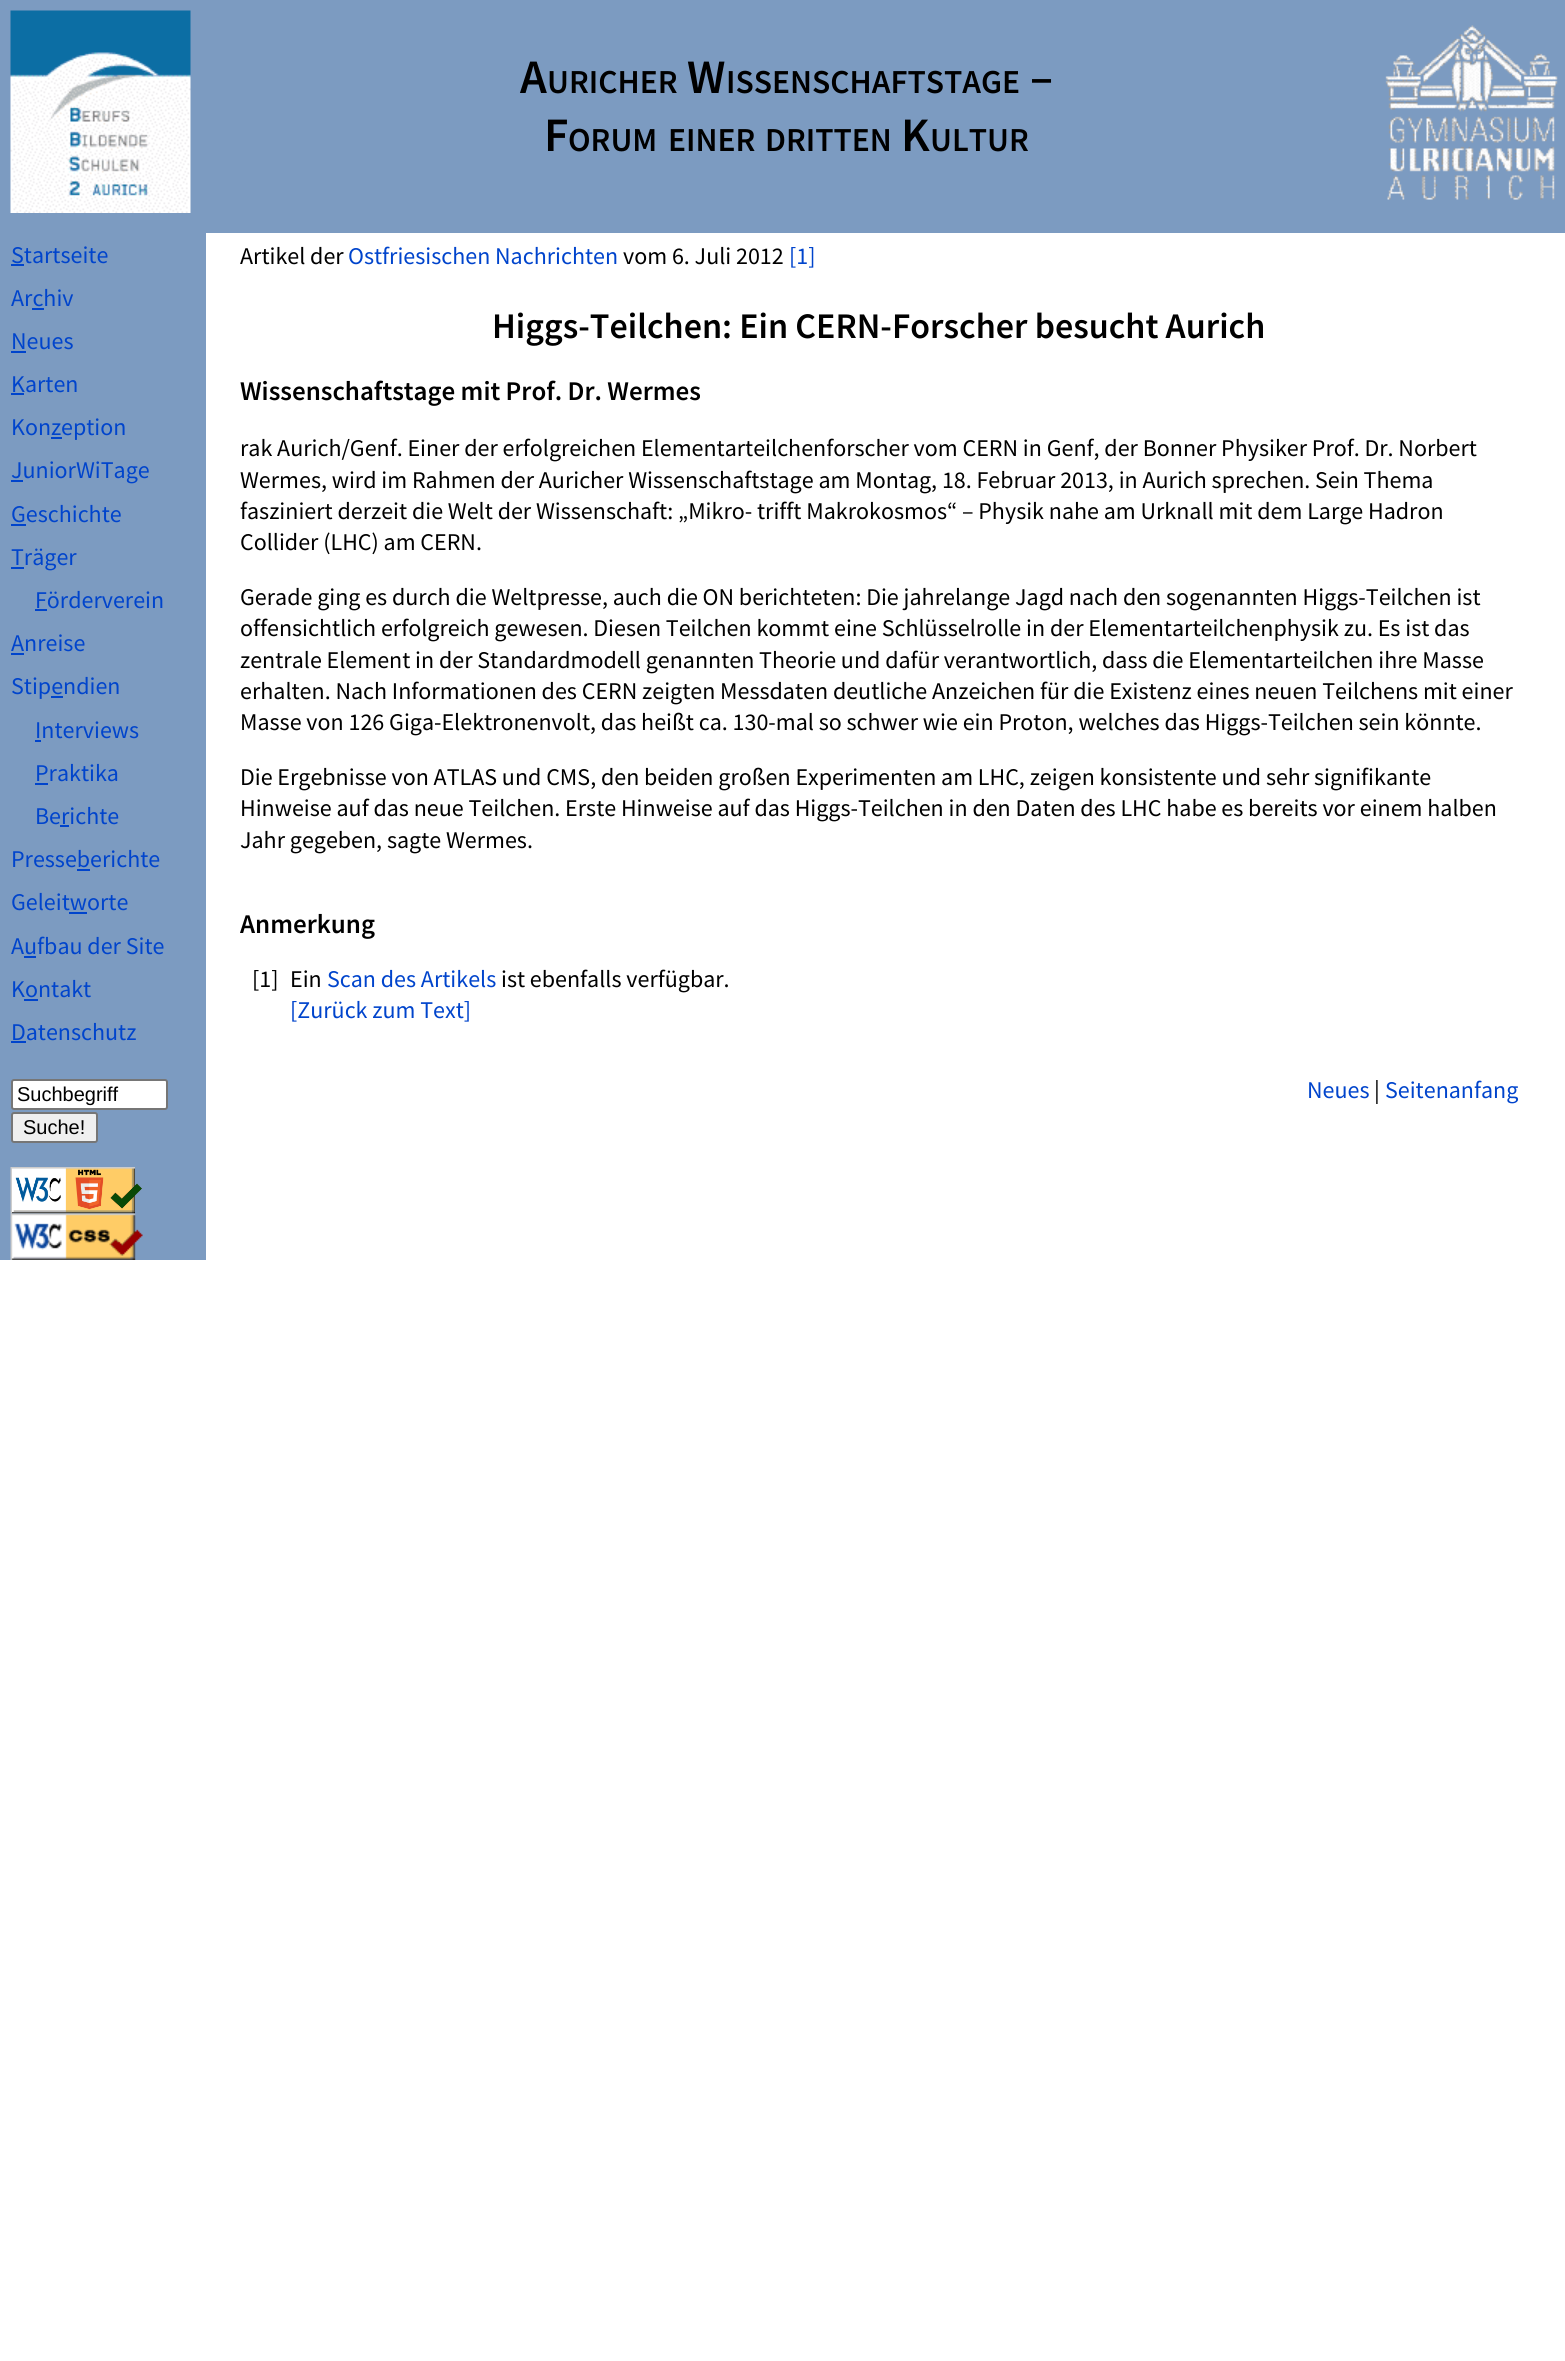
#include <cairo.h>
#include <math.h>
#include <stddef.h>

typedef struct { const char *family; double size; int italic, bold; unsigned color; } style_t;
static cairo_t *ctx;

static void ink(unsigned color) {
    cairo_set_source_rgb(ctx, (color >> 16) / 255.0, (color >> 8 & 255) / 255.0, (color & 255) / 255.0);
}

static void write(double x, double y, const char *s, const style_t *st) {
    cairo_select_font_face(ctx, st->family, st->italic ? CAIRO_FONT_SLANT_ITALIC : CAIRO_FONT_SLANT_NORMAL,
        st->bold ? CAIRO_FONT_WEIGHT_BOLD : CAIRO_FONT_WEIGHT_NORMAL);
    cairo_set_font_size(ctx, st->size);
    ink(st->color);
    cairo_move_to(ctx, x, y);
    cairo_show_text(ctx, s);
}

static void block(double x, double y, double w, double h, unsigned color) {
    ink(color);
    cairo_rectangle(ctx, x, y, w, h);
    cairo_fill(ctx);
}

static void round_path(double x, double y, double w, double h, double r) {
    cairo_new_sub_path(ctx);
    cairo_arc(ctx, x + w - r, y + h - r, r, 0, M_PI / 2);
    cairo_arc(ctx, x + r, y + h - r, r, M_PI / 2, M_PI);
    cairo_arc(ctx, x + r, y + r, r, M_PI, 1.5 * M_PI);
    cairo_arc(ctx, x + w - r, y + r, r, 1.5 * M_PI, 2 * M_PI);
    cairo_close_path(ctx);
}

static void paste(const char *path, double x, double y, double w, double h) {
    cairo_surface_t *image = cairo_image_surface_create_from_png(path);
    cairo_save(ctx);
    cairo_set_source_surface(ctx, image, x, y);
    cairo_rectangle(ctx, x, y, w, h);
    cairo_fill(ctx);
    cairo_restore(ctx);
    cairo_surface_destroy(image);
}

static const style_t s1 = {"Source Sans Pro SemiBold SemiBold", 48, 0, 0, 0x000000};
static const style_t s2 = {"Source Sans Pro SemiBold SemiBold", 33.5, 0, 0, 0x000000};
static const style_t s3 = {"Source Sans Pro", 24, 0, 0, 0x0044cc};
static const style_t s4 = {"Liberation Sans", 20, 0, 0, 0x000000};
static const style_t s5 = {"Source Sans Pro", 24, 0, 0, 0x000000};
static const style_t s6 = {"Source Sans Pro SemiBold SemiBold", 36, 0, 0, 0x000000};
static const style_t s7 = {"Source Sans Pro SemiBold SemiBold", 27, 0, 0, 0x000000};

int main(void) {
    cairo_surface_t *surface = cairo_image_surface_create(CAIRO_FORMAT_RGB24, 1565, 2361);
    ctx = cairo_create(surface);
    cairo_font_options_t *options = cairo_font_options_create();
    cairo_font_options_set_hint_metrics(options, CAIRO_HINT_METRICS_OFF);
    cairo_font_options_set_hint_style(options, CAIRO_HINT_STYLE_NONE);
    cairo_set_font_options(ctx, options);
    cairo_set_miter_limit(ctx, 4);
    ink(0xffffff);
    cairo_paint(ctx);
    block(0, 0, 1565, 233, 0x7c9bc1);
    paste("pic1.png", 10, 10, 181, 203);
    write(520, 93, "A", &s1);
    write(547, 93, "URICHER", &s2);
    write(687, 93, "W", &s1);
    write(726, 93, "ISSENSCHAFTSTAGE", &s2);
    write(1030, 93, "–", &s1);
    write(544, 151, "F", &s1);
    write(568, 151, "ORUM", &s2);
    write(668, 151, "EINER", &s2);
    write(765, 151, "DRITTEN", &s2);
    write(901, 151, "K", &s1);
    write(930, 151, "ULTUR", &s2);
    paste("pic2.png", 1385, 25, 173, 175);
    block(0, 233, 206, 1027, 0x7c9bc1);
    write(11, 263, "Startseite", &s3);
    block(11, 264, 13, 2, 0x0044cc);
    write(11, 306, "Archiv", &s3);
    block(32, 308, 12, 2, 0x0044cc);
    write(11, 349, "Neues", &s3);
    block(11, 351, 15, 2, 0x0044cc);
    write(11, 392, "Karten", &s3);
    block(11, 393, 13, 2, 0x0044cc);
    write(11, 435, "Konz", &s3);
    block(51, 437, 11, 2, 0x0044cc);
    write(61, 435, "eption", &s3);
    block(11, 480, 12, 2, 0x0044cc);
    write(11, 478, "JuniorWiTage", &s3);
    write(11, 522, "Geschichte", &s3);
    block(11, 524, 15, 2, 0x0044cc);
    block(11, 567, 13, 2, 0x0044cc);
    write(11, 565, "Träger", &s3);
    write(35, 608, "Förderverein", &s3);
    block(35, 609, 12, 2, 0x0044cc);
    write(11, 651, "Anreise", &s3);
    block(11, 653, 13, 2, 0x0044cc);
    write(11, 694, "Stipendien", &s3);
    block(51, 696, 12, 2, 0x0044cc);
    write(35, 738, "Interviews", &s3);
    block(35, 740, 6, 2, 0x0044cc);
    write(35, 781, "Praktika", &s3);
    block(35, 783, 13, 2, 0x0044cc);
    write(35, 824, "Berichte", &s3);
    block(60, 825, 9, 2, 0x0044cc);
    write(11, 867, "Presseberichte", &s3);
    block(77, 869, 13, 2, 0x0044cc);
    write(11, 910, "Geleitworte", &s3);
    block(69, 912, 18, 2, 0x0044cc);
    write(11, 954, "Aufbau der Site", &s3);
    block(24, 956, 12, 2, 0x0044cc);
    write(11, 997, "Kontakt", &s3);
    block(24, 999, 14, 2, 0x0044cc);
    write(11, 1040, "Datenschutz", &s3);
    block(11, 1041, 15, 2, 0x0044cc);
    ink(0xffffff);
    round_path(12, 1080, 155, 29, 2);
    cairo_fill_preserve(ctx);
    ink(0x767676);
    cairo_stroke(ctx);
    write(17, 1101, "Suchbegriff", &s4);
    ink(0xefefef);
    round_path(12, 1113, 85, 29, 2);
    cairo_fill_preserve(ctx);
    ink(0x767676);
    cairo_stroke(ctx);
    write(23, 1134, "Suche!", &s4);
    paste("pic3.png", 10, 1167, 132, 47);
    paste("pic4.png", 10, 1213, 133, 47);
    write(240, 264, "Artikel der", &s5);
    write(348, 264, "Ostfriesischen Nachrichten", &s3);
    write(623, 264, "vom 6. Juli 2012", &s5);
    write(789, 264, "[1]", &s3);
    write(492, 338, "Higgs-Teilchen: Ein CERN-Forscher besucht Aurich", &s6);
    write(240, 400, "Wissenschaftstage mit Prof. Dr. Wermes", &s7);
    write(240, 456, "rak Aurich/Genf. Einer der erfolgreichen Elementarteilchenforscher vom CERN in Genf, der Bonner Physiker Prof. Dr. Norbert", &s5);
    write(240, 488, "Wermes, wird im Rahmen der Auricher Wissenschaftstage am Montag, 18. Februar 2013, in Aurich sprechen. Sein Thema", &s5);
    write(240, 519, "fasziniert derzeit die Welt der Wissenschaft: „Mikro- trifft Makrokosmos“ – Physik nahe am Urknall mit dem Large Hadron", &s5);
    write(240, 550, "Collider (LHC) am CERN.", &s5);
    write(240, 605, "Gerade ging es durch die Weltpresse, auch die ON berichteten: Die jahrelange Jagd nach den sogenannten Higgs-Teilchen ist", &s5);
    write(240, 636, "offensichtlich erfolgreich gewesen. Diesen Teilchen kommt eine Schlüsselrolle in der Elementarteilchenphysik zu. Es ist das", &s5);
    write(240, 668, "zentrale Element in der Standardmodell genannten Theorie und dafür verantwortlich, dass die Elementarteilchen ihre Masse", &s5);
    write(240, 699, "erhalten. Nach Informationen des CERN zeigten Messdaten deutliche Anzeichen für die Existenz eines neuen Teilchens mit einer", &s5);
    write(240, 730, "Masse von 126 Giga-Elektronenvolt, das heißt ca. 130-mal so schwer wie ein Proton, welches das Higgs-Teilchen sein könnte.", &s5);
    write(240, 785, "Die Ergebnisse von ATLAS und CMS, den beiden großen Experimenten am LHC, zeigen konsistente und sehr signifikante", &s5);
    write(240, 816, "Hinweise auf das neue Teilchen. Erste Hinweise auf das Higgs-Teilchen in den Daten des LHC habe es bereits vor einem halben", &s5);
    write(240, 848, "Jahr gegeben, sagte Wermes.", &s5);
    write(240, 933, "Anmerkung", &s7);
    write(252, 987, "[1]", &s5);
    write(290, 987, "Ein", &s5);
    write(327, 987, "Scan des Artikels", &s3);
    write(501, 987, "ist ebenfalls verfügbar.", &s5);
    write(290, 1018, "[Zurück zum Text]", &s3);
    write(1307, 1098, "Neues", &s3);
    write(1374, 1098, "|", &s5);
    write(1385, 1098, "Seitenanfang", &s3);
    cairo_surface_write_to_png(surface, "screenshot.png");
    cairo_font_options_destroy(options);
    cairo_destroy(ctx);
    cairo_surface_destroy(surface);
    return 0;
}
